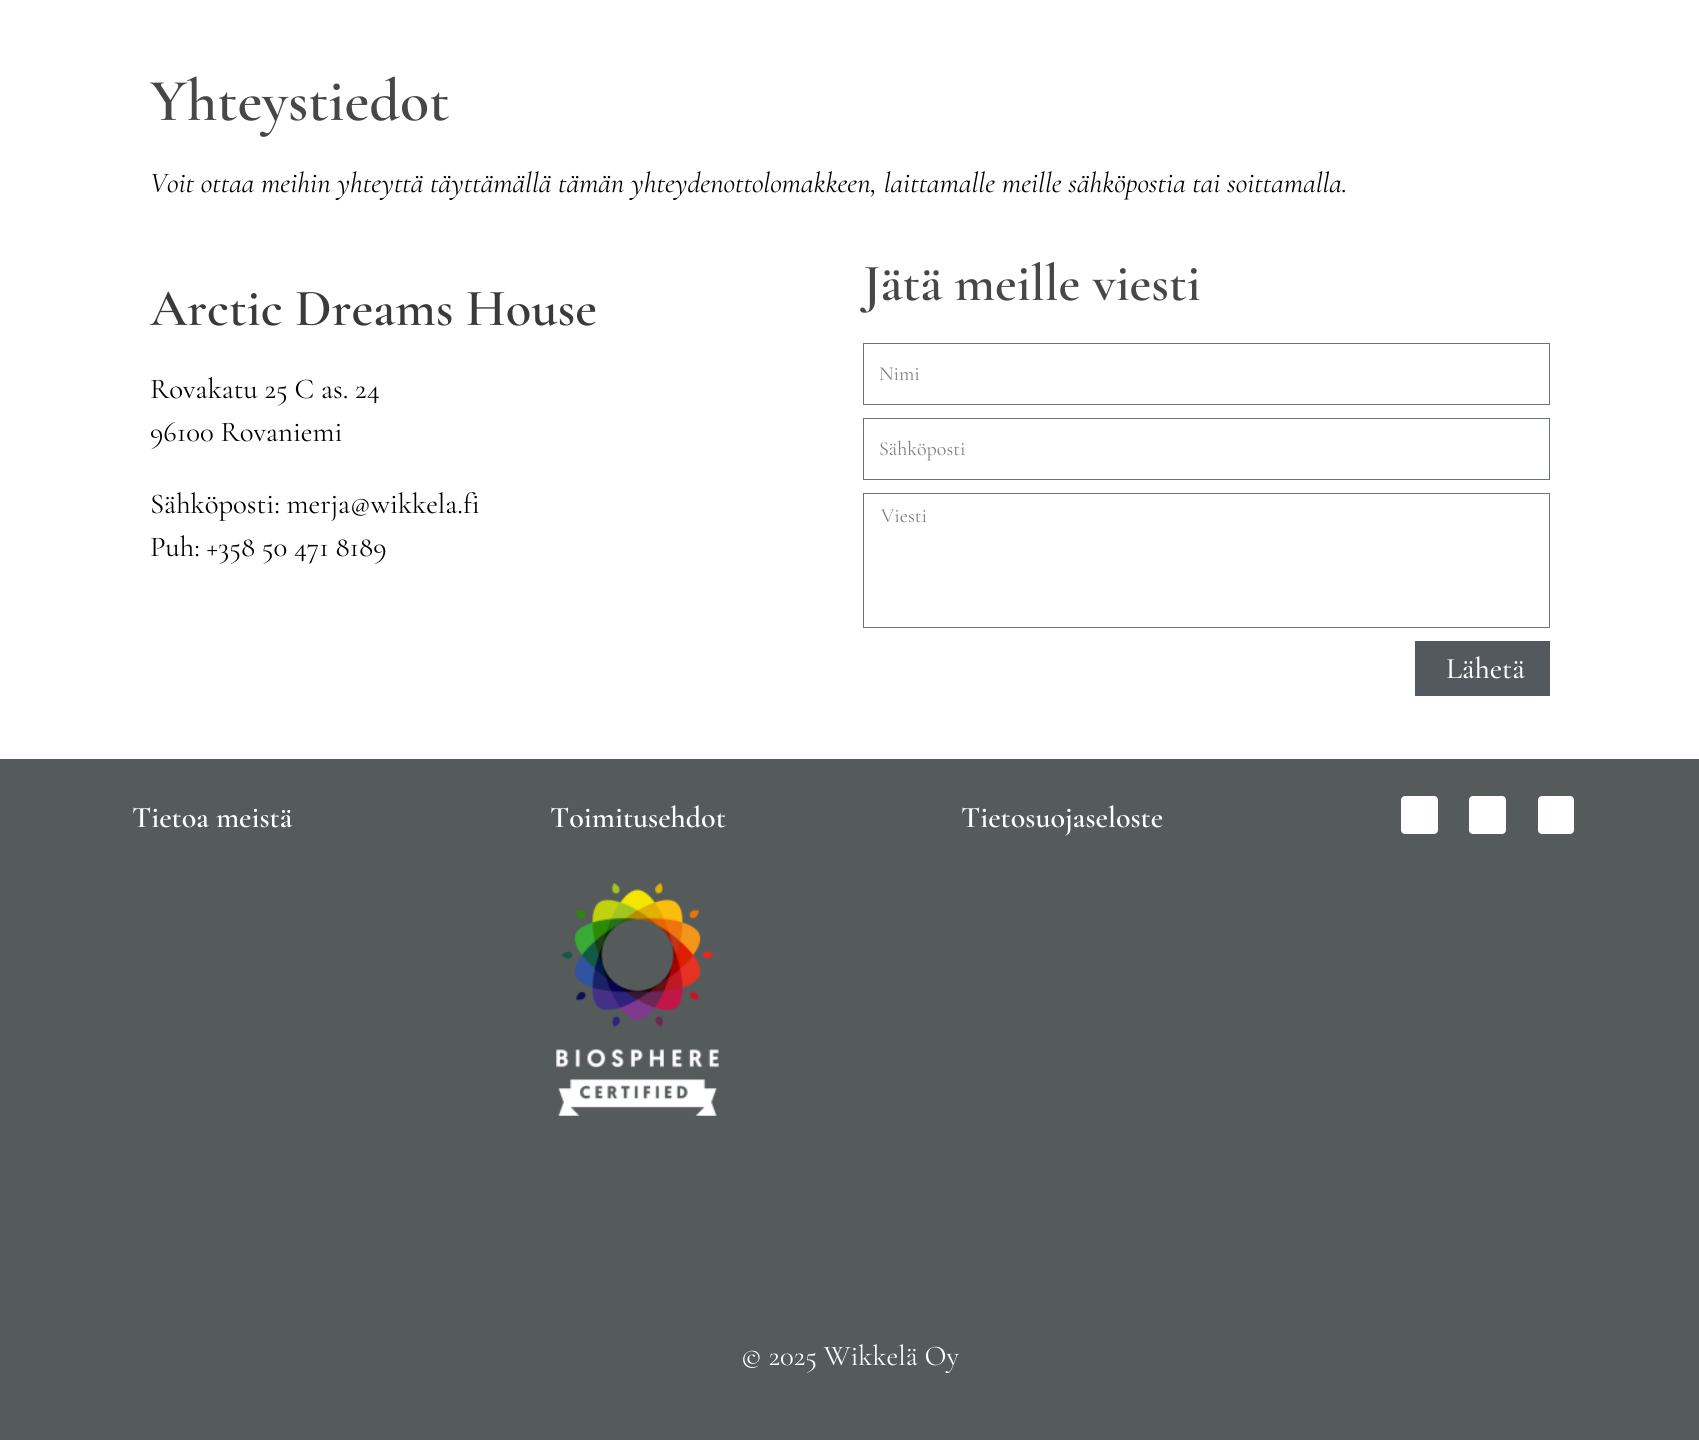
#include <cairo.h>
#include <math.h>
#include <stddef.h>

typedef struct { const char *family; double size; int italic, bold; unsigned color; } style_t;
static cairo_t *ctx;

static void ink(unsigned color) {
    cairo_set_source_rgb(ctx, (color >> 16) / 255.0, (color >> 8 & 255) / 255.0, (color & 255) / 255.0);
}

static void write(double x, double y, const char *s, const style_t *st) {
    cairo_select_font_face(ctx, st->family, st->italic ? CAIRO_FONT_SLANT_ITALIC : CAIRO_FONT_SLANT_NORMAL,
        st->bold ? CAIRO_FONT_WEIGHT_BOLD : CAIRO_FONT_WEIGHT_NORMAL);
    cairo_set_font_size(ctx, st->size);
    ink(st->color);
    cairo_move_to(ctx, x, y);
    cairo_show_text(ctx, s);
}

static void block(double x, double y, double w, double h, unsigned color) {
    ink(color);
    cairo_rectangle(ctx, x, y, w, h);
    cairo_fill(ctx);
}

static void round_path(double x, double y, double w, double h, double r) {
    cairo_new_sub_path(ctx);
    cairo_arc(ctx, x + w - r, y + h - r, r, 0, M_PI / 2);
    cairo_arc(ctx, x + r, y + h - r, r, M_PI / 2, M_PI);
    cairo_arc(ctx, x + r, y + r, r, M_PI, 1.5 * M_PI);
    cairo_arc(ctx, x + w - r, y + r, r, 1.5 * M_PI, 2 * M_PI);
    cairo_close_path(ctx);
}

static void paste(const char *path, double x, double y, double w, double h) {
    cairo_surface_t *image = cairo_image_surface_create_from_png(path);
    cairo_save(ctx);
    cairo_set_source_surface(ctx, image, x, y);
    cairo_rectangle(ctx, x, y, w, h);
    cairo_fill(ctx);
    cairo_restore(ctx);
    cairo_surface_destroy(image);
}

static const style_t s1 = {"Cormorant Garamond SemiBold", 60, 0, 0, 0x474747};
static const style_t s2 = {"Cormorant Garamond", 28.75, 1, 0, 0x000000};
static const style_t s3 = {"Cormorant Garamond SemiBold", 52.5, 0, 0, 0x3a3a3a};
static const style_t s4 = {"Cormorant Garamond", 28.75, 0, 0, 0x000000};
static const style_t s5 = {"Cormorant Garamond SemiBold", 52.5, 0, 0, 0x474747};
static const style_t s6 = {"Cormorant Garamond", 20, 0, 0, 0x7e7e7e};
static const style_t s7 = {"Cormorant Garamond Medium", 30, 0, 0, 0xffffff};
static const style_t s8 = {"Cormorant Garamond SemiBold", 30, 0, 0, 0xffffff};
static const style_t s9 = {"Cormorant Garamond", 28.75, 0, 0, 0xffffff};

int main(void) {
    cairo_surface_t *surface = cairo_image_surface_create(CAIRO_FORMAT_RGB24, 1699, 1440);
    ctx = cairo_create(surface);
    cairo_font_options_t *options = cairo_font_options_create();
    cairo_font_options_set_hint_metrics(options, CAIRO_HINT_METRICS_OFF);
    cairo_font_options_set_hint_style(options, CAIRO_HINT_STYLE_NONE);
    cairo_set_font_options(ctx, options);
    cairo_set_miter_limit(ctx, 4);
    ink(0xffffff);
    cairo_paint(ctx);
    write(150, 120, "Yhteystiedot", &s1);
    write(150, 192, "Voit ottaa meihin yhteyttä täyttämällä tämän yhteydenottolomakkeen, laittamalle meille sähköpostia tai soittamalla.", &s2);
    write(150, 325, "Arctic Dreams House", &s3);
    write(150, 398, "Rovakatu 25 C as. 24", &s4);
    write(150, 441, "96100 Rovaniemi", &s4);
    write(150, 513, "Sähköposti: merja@wikkela.fi", &s4);
    write(150, 556, "Puh: +358 50 471 8189", &s4);
    write(863, 300, "Jätä meille viesti", &s5);
    cairo_rectangle(ctx, 863.5, 343.5, 686, 61);
    ink(0x69727d);
    cairo_set_line_width(ctx, 1);
    cairo_stroke(ctx);
    write(879, 380, "Nimi", &s6);
    cairo_rectangle(ctx, 863.5, 418.5, 686, 61);
    ink(0x69727d);
    cairo_stroke(ctx);
    write(879, 455, "Sähköposti", &s6);
    cairo_rectangle(ctx, 863.5, 493.5, 686, 134);
    ink(0x69727d);
    cairo_stroke(ctx);
    write(881, 522, "Viesti", &s6);
    block(1415, 641, 135, 55, 0x54595f);
    write(1446, 678, "Lähetä", &s7);
    block(0, 759, 1699, 681, 0x555b5b);
    write(132, 827, "Tietoa meistä", &s8);
    write(550, 827, "Toimitusehdot", &s8);
    write(961, 827, "Tietosuojaseloste", &s8);
    round_path(1401, 796, 37, 38, 4);
    cairo_fill(ctx);
    round_path(1469, 796, 37, 38, 4);
    cairo_fill(ctx);
    round_path(1538, 796, 36, 38, 4);
    cairo_fill(ctx);
    paste("pic1.png", 556, 883, 163, 233);
    write(741, 1365, "© 2025 Wikkelä Oy", &s9);
    cairo_surface_write_to_png(surface, "screenshot.png");
    cairo_font_options_destroy(options);
    cairo_destroy(ctx);
    cairo_surface_destroy(surface);
    return 0;
}
